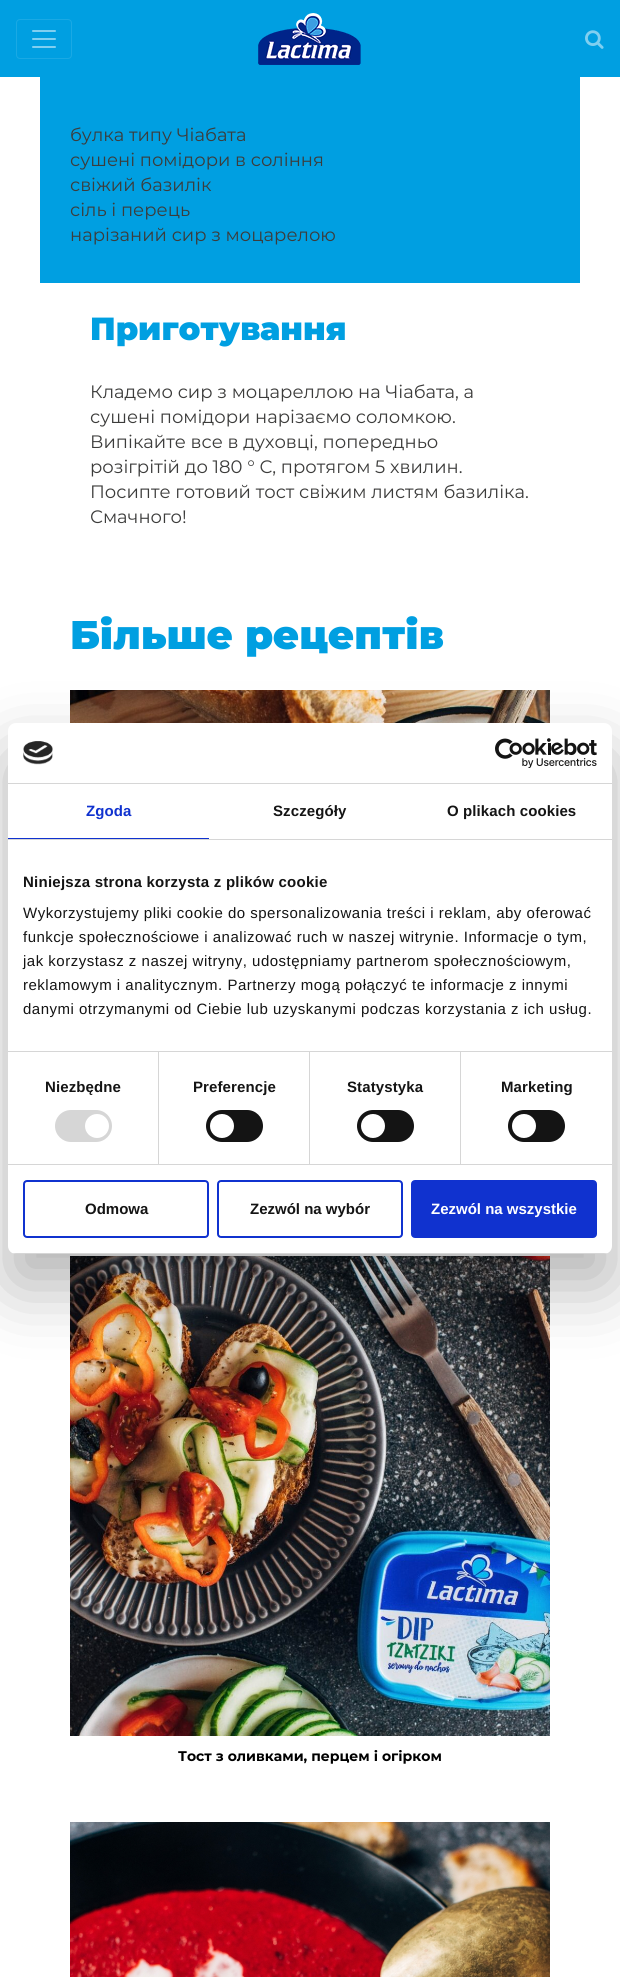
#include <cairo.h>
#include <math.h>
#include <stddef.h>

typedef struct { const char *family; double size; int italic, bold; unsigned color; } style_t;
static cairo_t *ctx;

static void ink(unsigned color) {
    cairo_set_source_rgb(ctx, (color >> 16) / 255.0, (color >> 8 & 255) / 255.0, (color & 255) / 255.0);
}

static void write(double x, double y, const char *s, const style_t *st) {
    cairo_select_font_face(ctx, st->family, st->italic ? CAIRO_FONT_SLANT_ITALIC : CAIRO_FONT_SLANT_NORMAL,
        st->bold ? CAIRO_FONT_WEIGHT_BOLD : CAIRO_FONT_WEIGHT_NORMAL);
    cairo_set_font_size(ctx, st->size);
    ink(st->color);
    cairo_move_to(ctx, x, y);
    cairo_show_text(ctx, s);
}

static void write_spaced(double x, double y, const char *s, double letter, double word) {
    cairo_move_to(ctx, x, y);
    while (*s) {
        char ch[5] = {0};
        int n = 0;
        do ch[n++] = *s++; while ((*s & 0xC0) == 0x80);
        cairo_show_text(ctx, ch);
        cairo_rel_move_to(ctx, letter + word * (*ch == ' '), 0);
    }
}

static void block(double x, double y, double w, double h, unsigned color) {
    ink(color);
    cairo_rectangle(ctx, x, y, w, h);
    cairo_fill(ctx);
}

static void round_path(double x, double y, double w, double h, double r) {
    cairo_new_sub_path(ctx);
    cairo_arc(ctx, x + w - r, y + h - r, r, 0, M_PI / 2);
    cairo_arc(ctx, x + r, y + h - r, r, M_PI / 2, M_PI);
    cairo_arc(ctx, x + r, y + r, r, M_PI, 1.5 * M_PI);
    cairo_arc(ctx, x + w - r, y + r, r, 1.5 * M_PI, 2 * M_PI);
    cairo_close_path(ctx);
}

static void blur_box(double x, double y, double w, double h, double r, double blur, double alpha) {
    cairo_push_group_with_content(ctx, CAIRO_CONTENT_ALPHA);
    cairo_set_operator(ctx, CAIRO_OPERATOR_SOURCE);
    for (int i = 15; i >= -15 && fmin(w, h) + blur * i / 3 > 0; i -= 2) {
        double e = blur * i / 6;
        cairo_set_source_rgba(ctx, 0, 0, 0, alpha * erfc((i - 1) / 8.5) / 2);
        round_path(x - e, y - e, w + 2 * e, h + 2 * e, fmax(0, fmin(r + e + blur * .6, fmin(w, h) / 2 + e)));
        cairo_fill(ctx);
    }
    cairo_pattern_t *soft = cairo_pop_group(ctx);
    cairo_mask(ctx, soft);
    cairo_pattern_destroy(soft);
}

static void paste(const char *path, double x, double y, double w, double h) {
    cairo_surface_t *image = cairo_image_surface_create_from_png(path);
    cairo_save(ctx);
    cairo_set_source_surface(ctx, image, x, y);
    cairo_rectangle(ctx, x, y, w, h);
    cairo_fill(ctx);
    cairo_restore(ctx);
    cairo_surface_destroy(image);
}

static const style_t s1 = {"Montserrat", 18, 0, 0, 0x3c3c3b};
static const style_t s2 = {"Montserrat Black", 32, 0, 0, 0x009fe1};
static const style_t s3 = {"Montserrat Black", 40, 0, 0, 0x009fe1};
static const style_t s4 = {"Montserrat", 14, 0, 1, 0x000000};
static const style_t s5 = {"Liberation Sans", 15, 0, 1, 0x141414};
static const style_t s6 = {"Liberation Sans", 15, 0, 1, 0xffffff};

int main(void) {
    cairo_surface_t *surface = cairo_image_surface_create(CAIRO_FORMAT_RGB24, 620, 1977);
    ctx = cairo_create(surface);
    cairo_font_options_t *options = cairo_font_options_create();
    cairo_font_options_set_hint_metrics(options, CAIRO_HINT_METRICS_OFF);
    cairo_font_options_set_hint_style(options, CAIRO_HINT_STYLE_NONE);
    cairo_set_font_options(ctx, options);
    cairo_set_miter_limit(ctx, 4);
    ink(0xffffff);
    cairo_paint(ctx);
    block(0, 0, 620, 77, 0x009fe1);
    round_path(16.5, 19.5, 55, 39, 3.5);
    ink(0x1aa9e4);
    cairo_set_line_width(ctx, 1);
    cairo_stroke(ctx);
    paste("pic1.png", 32, 30, 24, 18);
    paste("pic2.png", 258, 13, 103, 52);
    paste("pic3.png", 585, 30, 19, 19);
    block(40, 77, 540, 206, 0x009fe1);
    write(70, 141, "булка типу Чіабата", &s1);
    write(70, 166, "сушені помідори в соління", &s1);
    write(70, 191, "свіжий базилік", &s1);
    write(70, 216, "сіль і перець", &s1);
    write(70, 241, "нарізаний сир з моцарелою", &s1);
    write(90, 340, "Приготування", &s2);
    write(90, 398, "Кладемо сир з моцареллою на Чіабата, а", &s1);
    write(90, 423, "сушені помідори нарізаємо соломкою.", &s1);
    write(90, 448, "Випікайте все в духовці, попередньо", &s1);
    write(90, 473, "розігрітій до 180 ° С, протягом 5 хвилин.", &s1);
    write(90, 498, "Посипте готовий тост свіжим листям базиліка.", &s1);
    write(90, 523, "Смачного!", &s1);
    write(70, 649, "Більше рецептів", &s3);
    paste("pic4.png", 70, 690, 480, 33);
    paste("pic5.png", 70, 1256, 480, 480);
    write(178, 1761, "Тост з оливками, перцем і огірком", &s4);
    paste("pic6.png", 70, 1822, 480, 155);
    ink(0x000000);
    blur_box(8, 755, 604, 531, 8, 34, 0.3);
    ink(0xffffff);
    round_path(8, 723, 604, 531, 8);
    cairo_fill(ctx);
    block(8, 783, 604, 1, 0xd6d6d6);
    paste("pic7.png", 23, 741, 30, 24);
    paste("pic8.png", 495, 738, 102, 30);
    block(8, 839, 604, 1, 0xd6d6d6);
    block(8, 838, 201, 1, 0x1032cf);
    cairo_select_font_face(ctx, "Liberation Sans", CAIRO_FONT_SLANT_NORMAL, CAIRO_FONT_WEIGHT_BOLD);
    cairo_set_font_size(ctx, 15);
    write_spaced(86, 816, "Zgoda", 0.1, 0);
    ink(0x141414);
    write_spaced(273, 816, "Szczegóły", 0.1, 0);
    write_spaced(447, 816, "O plikach cookies", 0.1, 0);
    block(8, 1051, 604, 1, 0xd6d6d6);
    ink(0x141414);
    write_spaced(23, 887, "Niniejsza strona korzysta z plików cookie", 0.25, 0);
    cairo_select_font_face(ctx, "Liberation Sans", CAIRO_FONT_SLANT_NORMAL, CAIRO_FONT_WEIGHT_NORMAL);
    write_spaced(23, 918, "Wykorzystujemy pliki cookie do spersonalizowania treści i reklam, aby oferować", 0.5, 0);
    write_spaced(23, 942, "funkcje społecznościowe i analizować ruch w naszej witrynie. Informacje o tym,", 0.5, 0);
    write_spaced(23, 966, "jak korzystasz z naszej witryny, udostępniamy partnerom społecznościowym,", 0.5, 0);
    write_spaced(23, 990, "reklamowym i analitycznym. Partnerzy mogą połączyć te informacje z innymi", 0.5, 0);
    write_spaced(23, 1014, "danymi otrzymanymi od Ciebie lub uzyskanymi podczas korzystania z ich usług.", 0.5, 0);
    block(8, 1164, 604, 1, 0xd6d6d6);
    block(158, 1052, 1, 112, 0xd6d6d6);
    cairo_select_font_face(ctx, "Liberation Sans", CAIRO_FONT_SLANT_NORMAL, CAIRO_FONT_WEIGHT_BOLD);
    ink(0x141414);
    write_spaced(45, 1092, "Niezbędne", 0.1, 0);
    ink(0xd6d6d6);
    round_path(55, 1110, 57, 32, 16);
    cairo_fill(ctx);
    ink(0xffffff);
    cairo_arc(ctx, 97, 1126, 12, 0, 2 * M_PI);
    cairo_fill(ctx);
    block(309, 1052, 1, 112, 0xd6d6d6);
    ink(0x141414);
    write_spaced(193, 1092, "Preferencje", 0.1, 0);
    round_path(206, 1110, 57, 32, 16);
    cairo_fill(ctx);
    ink(0xffffff);
    cairo_arc(ctx, 222, 1126, 12, 0, 2 * M_PI);
    cairo_fill(ctx);
    block(460, 1052, 1, 112, 0xd6d6d6);
    ink(0x141414);
    write_spaced(347, 1092, "Statystyka", 0.1, 0);
    round_path(357, 1110, 57, 32, 16);
    cairo_fill(ctx);
    ink(0xffffff);
    cairo_arc(ctx, 373, 1126, 12, 0, 2 * M_PI);
    cairo_fill(ctx);
    ink(0x141414);
    write_spaced(501, 1092, "Marketing", 0.1, 0);
    round_path(508, 1110, 57, 32, 16);
    cairo_fill(ctx);
    ink(0xffffff);
    cairo_arc(ctx, 524, 1126, 12, 0, 2 * M_PI);
    cairo_fill(ctx);
    cairo_save(ctx);
    round_path(8, 723, 604, 531, 8);
    cairo_clip(ctx);
    block(8, 1253, 604, 1, 0xd6d6d6);
    cairo_restore(ctx);
    round_path(24, 1181, 184, 56, 3);
    ink(0x1032cf);
    cairo_set_line_width(ctx, 2);
    cairo_stroke(ctx);
    write(85, 1214, "Odmowa", &s5);
    round_path(218, 1181, 184, 56, 3);
    ink(0x1032cf);
    cairo_stroke(ctx);
    write(250, 1214, "Zezwól na wybór", &s5);
    ink(0x1032cf);
    round_path(412, 1181, 184, 56, 3);
    cairo_fill_preserve(ctx);
    cairo_stroke(ctx);
    write(431, 1214, "Zezwól na wszystkie", &s6);
    cairo_surface_write_to_png(surface, "screenshot.png");
    cairo_font_options_destroy(options);
    cairo_destroy(ctx);
    cairo_surface_destroy(surface);
    return 0;
}
